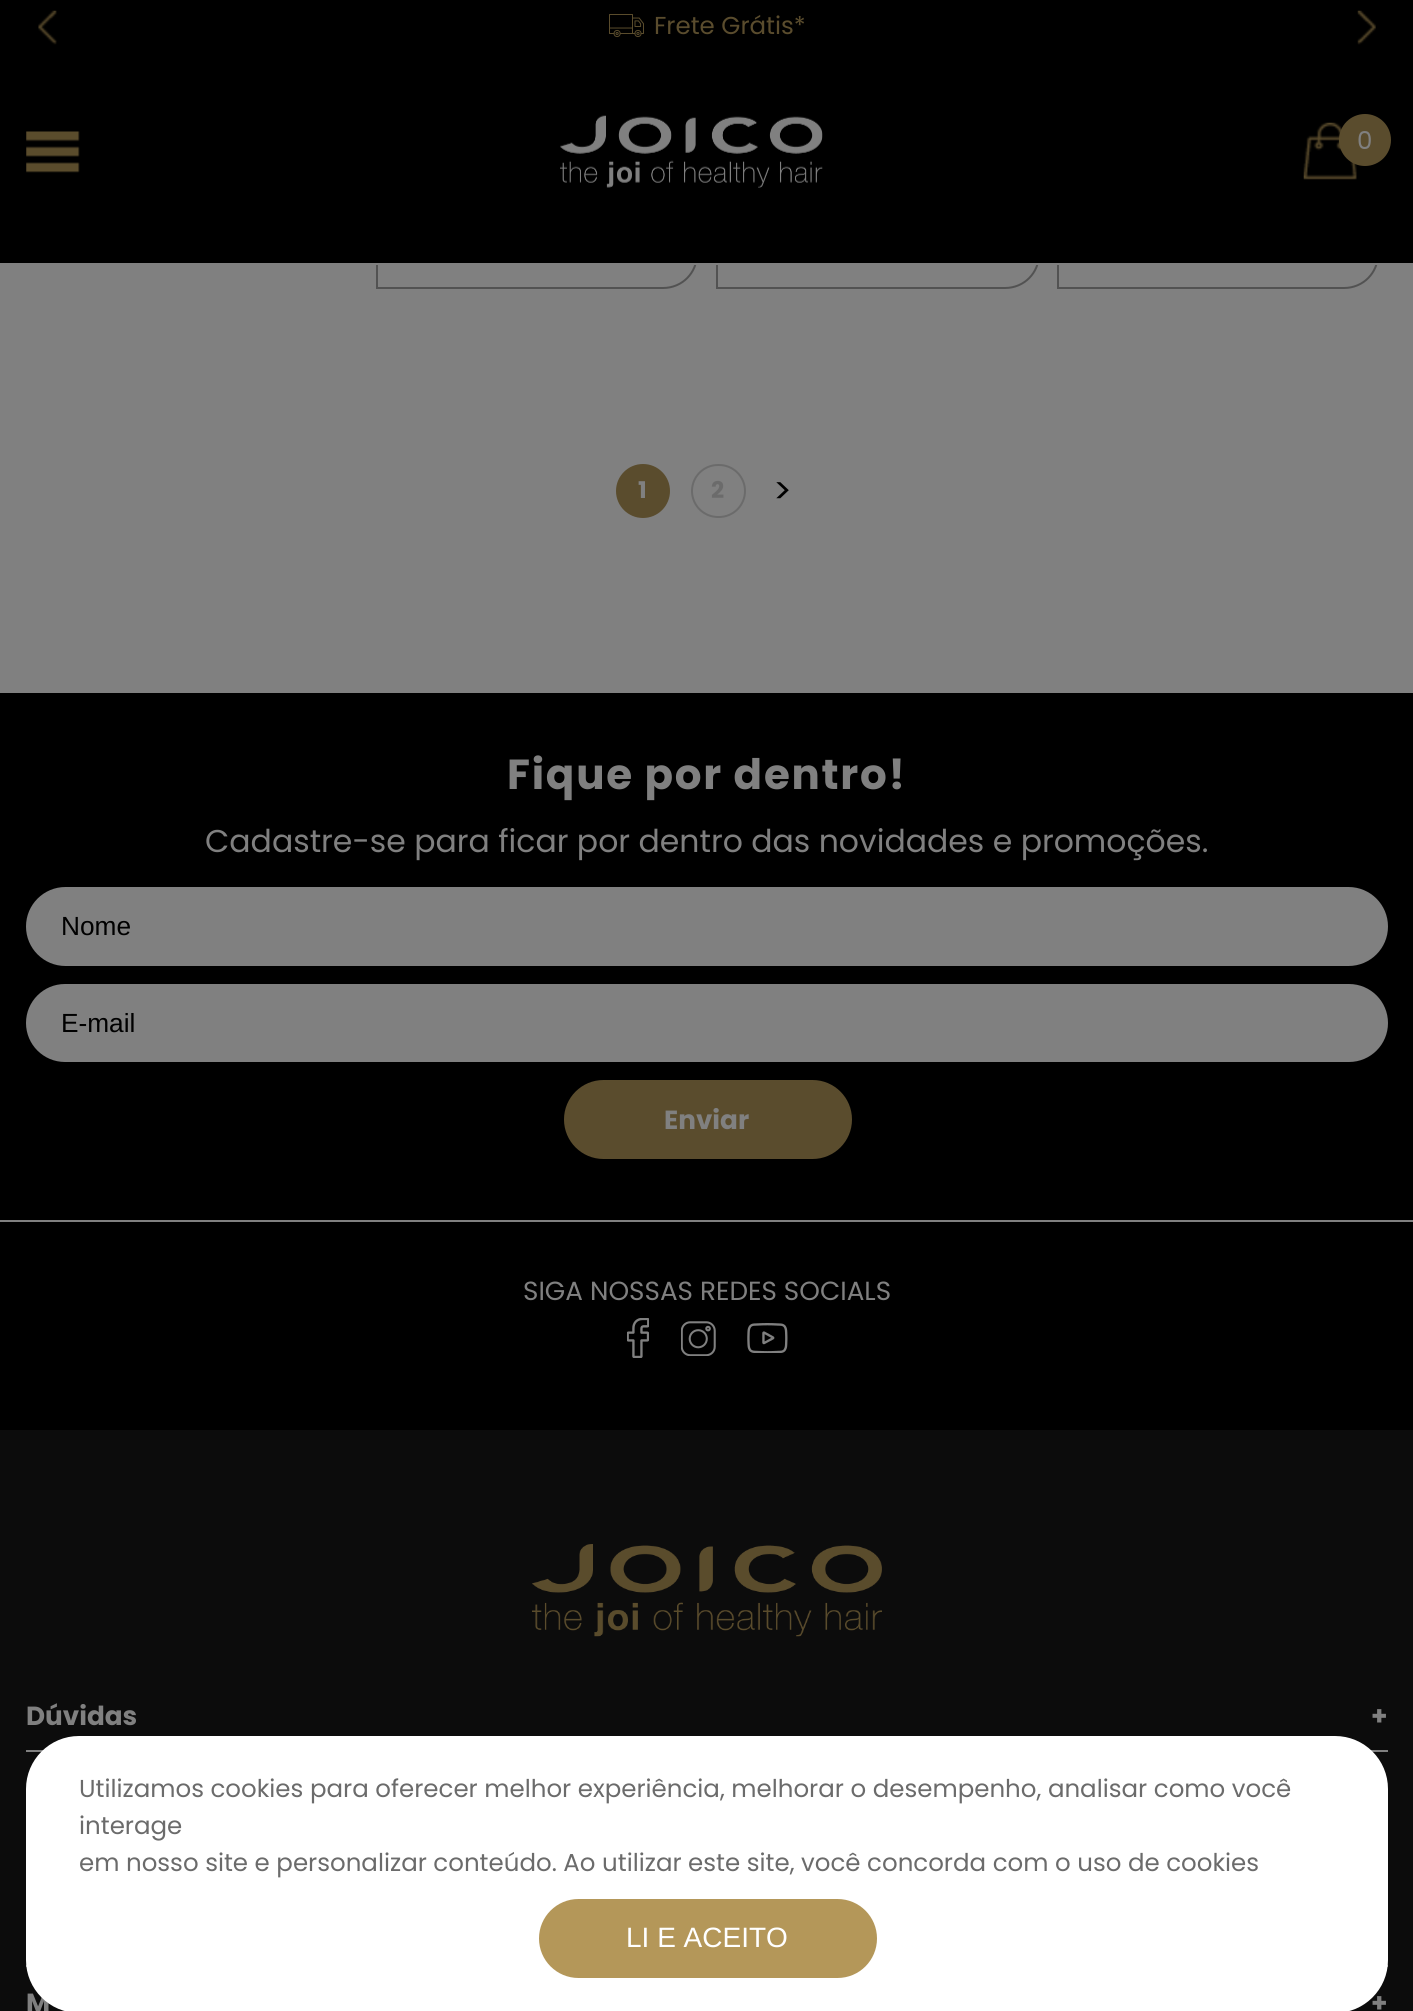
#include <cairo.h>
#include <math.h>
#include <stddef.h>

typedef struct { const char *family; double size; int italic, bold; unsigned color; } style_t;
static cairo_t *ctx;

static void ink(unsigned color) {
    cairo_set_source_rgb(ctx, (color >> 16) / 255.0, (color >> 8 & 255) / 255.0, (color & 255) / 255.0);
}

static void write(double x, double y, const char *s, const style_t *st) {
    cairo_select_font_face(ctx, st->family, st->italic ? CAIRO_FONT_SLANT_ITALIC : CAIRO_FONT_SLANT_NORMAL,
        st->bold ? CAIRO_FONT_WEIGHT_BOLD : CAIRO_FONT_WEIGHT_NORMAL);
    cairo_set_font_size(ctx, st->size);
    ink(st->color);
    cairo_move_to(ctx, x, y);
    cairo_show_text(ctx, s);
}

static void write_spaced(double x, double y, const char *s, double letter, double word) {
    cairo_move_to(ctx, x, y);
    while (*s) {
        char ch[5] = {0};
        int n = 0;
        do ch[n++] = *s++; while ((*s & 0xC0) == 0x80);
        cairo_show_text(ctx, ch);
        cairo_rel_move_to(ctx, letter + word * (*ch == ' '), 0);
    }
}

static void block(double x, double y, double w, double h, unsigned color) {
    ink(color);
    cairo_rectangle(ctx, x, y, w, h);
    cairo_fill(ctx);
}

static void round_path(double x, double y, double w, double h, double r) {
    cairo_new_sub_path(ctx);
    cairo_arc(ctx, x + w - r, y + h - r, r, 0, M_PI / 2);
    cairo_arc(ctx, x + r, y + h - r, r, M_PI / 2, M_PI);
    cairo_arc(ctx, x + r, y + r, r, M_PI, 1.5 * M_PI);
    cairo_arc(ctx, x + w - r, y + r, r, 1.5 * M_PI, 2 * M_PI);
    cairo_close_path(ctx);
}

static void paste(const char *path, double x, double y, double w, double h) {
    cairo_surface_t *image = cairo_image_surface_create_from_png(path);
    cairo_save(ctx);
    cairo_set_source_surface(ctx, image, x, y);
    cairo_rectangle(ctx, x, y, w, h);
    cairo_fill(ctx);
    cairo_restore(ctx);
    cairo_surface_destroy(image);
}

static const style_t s1 = {"Poppins", 24.5, 0, 0, 0x5a4c2d};
static const style_t s2 = {"Poppins", 24.5, 0, 0, 0x808080};
static const style_t s3 = {"Poppins", 23, 0, 1, 0x808080};
static const style_t s4 = {"Poppins", 23, 0, 1, 0x6b6b6b};
static const style_t s5 = {"Poppins", 35, 0, 0, 0x000000};
static const style_t s6 = {"Poppins", 31.5, 0, 0, 0x808080};
static const style_t s7 = {"Liberation Sans", 26.25, 0, 0, 0x000000};
static const style_t s8 = {"Poppins", 26.25, 0, 1, 0x808080};
static const style_t s9 = {"Poppins", 26.25, 0, 0, 0x808080};
static const style_t s10 = {"Poppins", 24.5, 0, 0, 0x6b6b6b};
static const style_t s11 = {"Liberation Sans", 28, 0, 0, 0xffffff};

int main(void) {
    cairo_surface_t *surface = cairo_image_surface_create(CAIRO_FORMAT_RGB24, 1413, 2011);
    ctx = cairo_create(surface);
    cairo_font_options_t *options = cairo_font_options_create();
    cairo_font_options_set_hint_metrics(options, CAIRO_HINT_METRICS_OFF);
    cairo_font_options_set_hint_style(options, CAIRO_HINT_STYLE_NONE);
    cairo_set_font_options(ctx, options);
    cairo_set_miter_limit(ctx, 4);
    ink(0x808080);
    cairo_paint(ctx);
    cairo_new_path(ctx);
    cairo_move_to(ctx, 411, -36);
    cairo_line_to(ctx, 697, -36);
    cairo_line_to(ctx, 697, 254);
    cairo_curve_to(ctx, 697, 273, 682, 288, 663, 288);
    cairo_line_to(ctx, 377, 288);
    cairo_line_to(ctx, 377, -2);
    cairo_curve_to(ctx, 377, -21, 392, -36, 411, -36);
    cairo_close_path(ctx);
    ink(0x525252);
    cairo_stroke(ctx);
    cairo_new_path(ctx);
    cairo_move_to(ctx, 751, -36);
    cairo_line_to(ctx, 1039, -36);
    cairo_line_to(ctx, 1039, 254);
    cairo_curve_to(ctx, 1039, 273, 1024, 288, 1005, 288);
    cairo_line_to(ctx, 717, 288);
    cairo_line_to(ctx, 717, -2);
    cairo_curve_to(ctx, 717, -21, 732, -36, 751, -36);
    cairo_close_path(ctx);
    cairo_stroke(ctx);
    cairo_new_path(ctx);
    cairo_move_to(ctx, 1092, -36);
    cairo_line_to(ctx, 1378, -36);
    cairo_line_to(ctx, 1378, 254);
    cairo_curve_to(ctx, 1378, 273, 1363, 288, 1344, 288);
    cairo_line_to(ctx, 1058, 288);
    cairo_line_to(ctx, 1058, -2);
    cairo_curve_to(ctx, 1058, -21, 1073, -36, 1092, -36);
    cairo_close_path(ctx);
    cairo_stroke(ctx);
    block(0, 0, 1413, 263, 0x000000);
    paste("pic1.png", 38, 10, 19, 35);
    paste("pic2.png", 609, 14, 35, 24);
    write(654, 34, "Frete Grátis*", &s1);
    paste("pic3.png", 1357, 10, 19, 35);
    block(376, 263, 1002, 2, 0x808080);
    paste("pic4.png", 26, 131, 54, 42);
    paste("pic5.png", 560, 115, 263, 73);
    paste("pic6.png", 1303, 122, 54, 58);
    ink(0x5a4c2d);
    cairo_arc(ctx, 1365, 140, 26, 0, 2 * M_PI);
    cairo_fill(ctx);
    write(1357, 149, "0", &s2);
    ink(0x5a4c2d);
    cairo_new_path(ctx);
    cairo_arc(ctx, 643, 491, 26, 0, 2 * M_PI);
    cairo_fill_preserve(ctx);
    cairo_stroke(ctx);
    write(638, 498, "1", &s3);
    round_path(692, 465, 53, 52, 26);
    ink(0x6b6b6b);
    cairo_stroke(ctx);
    write(711, 498, "2", &s4);
    write(773, 503, ">", &s5);
    block(0, 693, 1413, 737, 0x000000);
    block(0, 1220, 1413, 2, 0x808080);
    cairo_select_font_face(ctx, "Poppins", CAIRO_FONT_SLANT_NORMAL, CAIRO_FONT_WEIGHT_BOLD);
    cairo_set_font_size(ctx, 42);
    write_spaced(507, 789, "Fique por dentro!", 1.75, 0);
    write(205, 852, "Cadastre-se para ficar por dentro das novidades e promoções.", &s6);
    round_path(26, 887, 1362, 79, 39.5);
    cairo_fill(ctx);
    write(61, 935, "Nome", &s7);
    ink(0x808080);
    round_path(26, 984, 1362, 78, 39);
    cairo_fill(ctx);
    write(61, 1032, "E-mail", &s7);
    ink(0x5a4c2d);
    round_path(564, 1080, 288, 79, 39.5);
    cairo_fill(ctx);
    write(664, 1129, "Enviar", &s8);
    write(523, 1300, "SIGA NOSSAS REDES SOCIALS", &s9);
    paste("pic7.png", 627, 1318, 22, 40);
    paste("pic8.png", 681, 1321, 35, 35);
    paste("pic9.png", 747, 1323, 41, 30);
    ink(0x0c0c0c);
    cairo_new_path(ctx);
    cairo_move_to(ctx, 376, 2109);
    cairo_line_to(ctx, 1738, 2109);
    cairo_line_to(ctx, 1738, 1430);
    cairo_line_to(ctx, 1388, 1430);
    cairo_line_to(ctx, 1388, 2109);
    cairo_close_path(ctx);
    cairo_fill(ctx);
    cairo_new_path(ctx);
    cairo_move_to(ctx, -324, 1430);
    cairo_line_to(ctx, -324, 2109);
    cairo_line_to(ctx, 1038, 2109);
    cairo_line_to(ctx, 26, 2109);
    cairo_line_to(ctx, 26, 1430);
    cairo_close_path(ctx);
    cairo_fill(ctx);
    block(26, 1430, 1362, 581, 0x0c0c0c);
    paste("pic10.png", 532, 1544, 350, 93);
    block(26, 1750, 1362, 2, 0x808080);
    write(26, 1725, "Dúvidas", &s8);
    write(1371, 1725, "+", &s8);
    block(26, 1965, 1362, 2, 0x808080);
    write(26, 2012, "M", &s8);
    write(1371, 2012, "+", &s8);
    ink(0xffffff);
    round_path(26, 1736, 1362, 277, 53);
    cairo_fill(ctx);
    write(79, 1797, "Utilizamos cookies para oferecer melhor experiência, melhorar o desempenho, analisar como você", &s10);
    write(79, 1834, "interage", &s10);
    write(79, 1871, "em nosso site e personalizar conteúdo. Ao utilizar este site, você concorda com o uso de cookies", &s10);
    ink(0xb49759);
    round_path(539, 1899, 338, 79, 39.5);
    cairo_fill(ctx);
    write(626, 1947, "LI E ACEITO", &s11);
    cairo_surface_write_to_png(surface, "screenshot.png");
    cairo_font_options_destroy(options);
    cairo_destroy(ctx);
    cairo_surface_destroy(surface);
    return 0;
}
